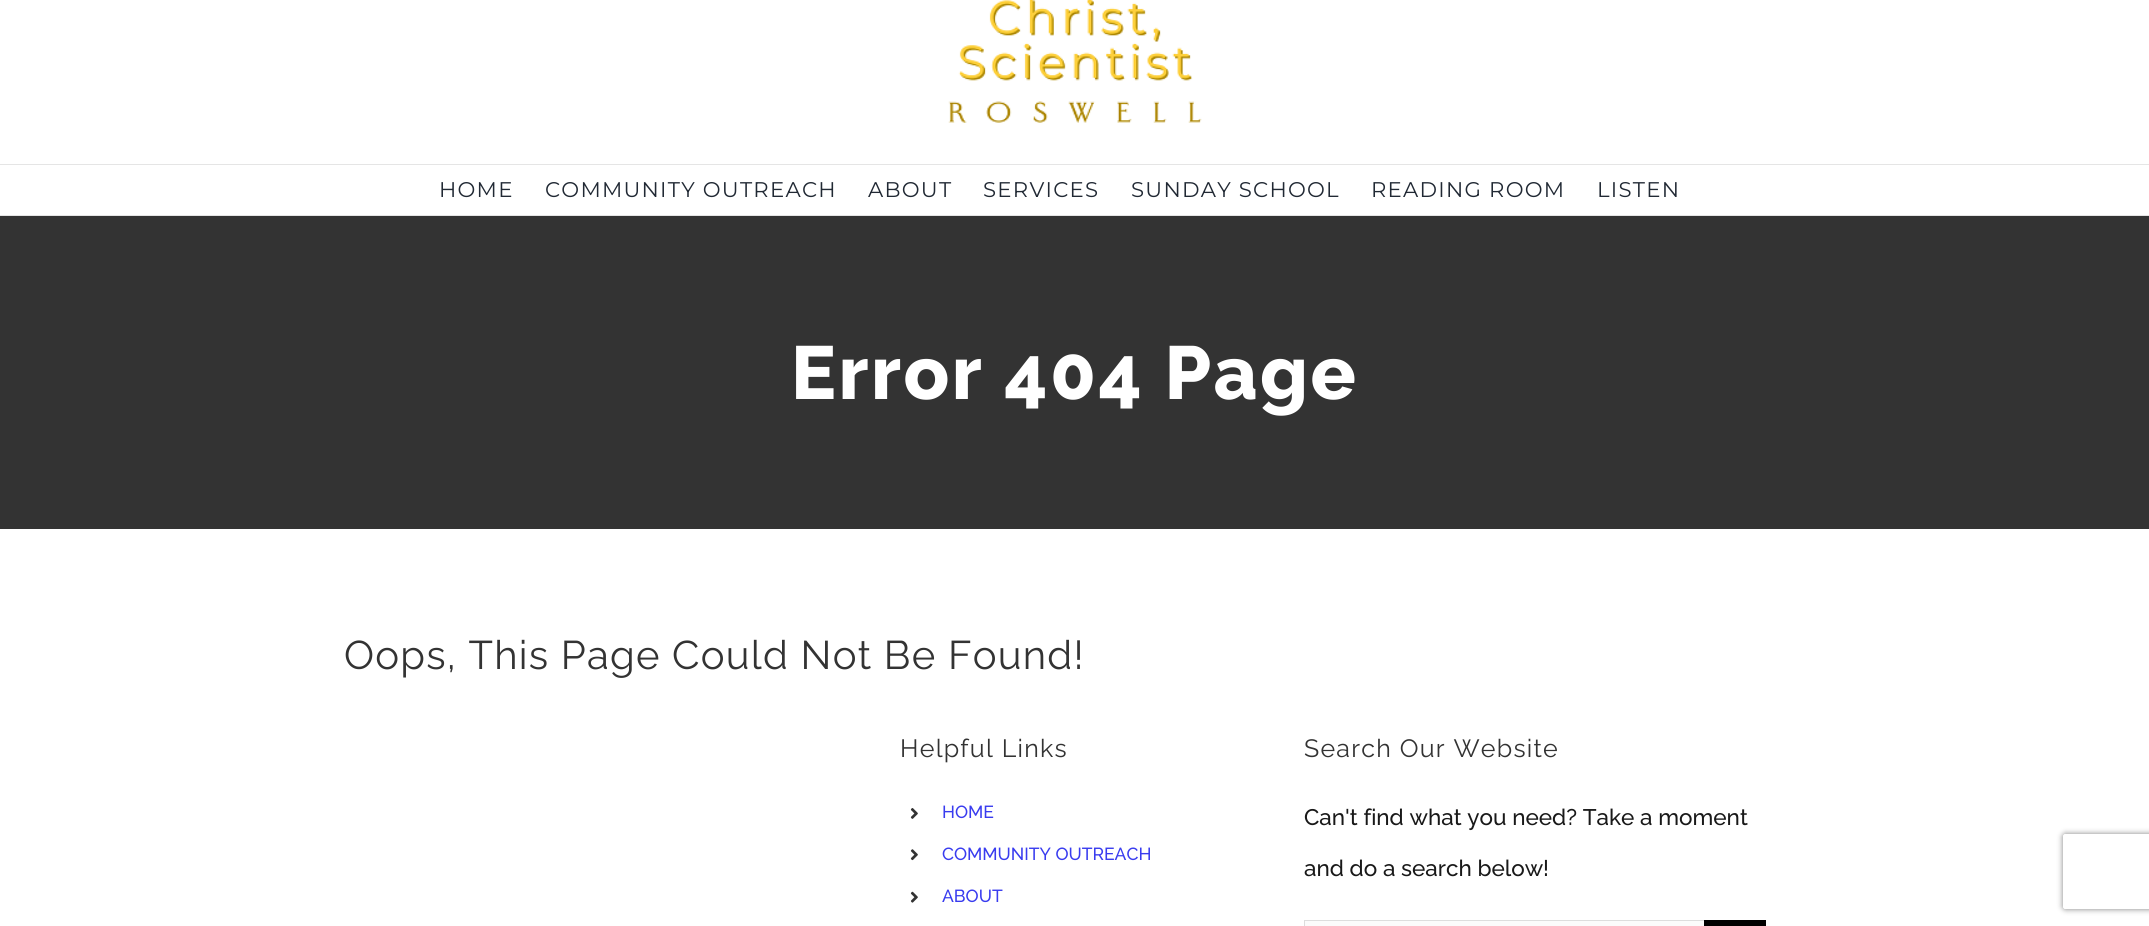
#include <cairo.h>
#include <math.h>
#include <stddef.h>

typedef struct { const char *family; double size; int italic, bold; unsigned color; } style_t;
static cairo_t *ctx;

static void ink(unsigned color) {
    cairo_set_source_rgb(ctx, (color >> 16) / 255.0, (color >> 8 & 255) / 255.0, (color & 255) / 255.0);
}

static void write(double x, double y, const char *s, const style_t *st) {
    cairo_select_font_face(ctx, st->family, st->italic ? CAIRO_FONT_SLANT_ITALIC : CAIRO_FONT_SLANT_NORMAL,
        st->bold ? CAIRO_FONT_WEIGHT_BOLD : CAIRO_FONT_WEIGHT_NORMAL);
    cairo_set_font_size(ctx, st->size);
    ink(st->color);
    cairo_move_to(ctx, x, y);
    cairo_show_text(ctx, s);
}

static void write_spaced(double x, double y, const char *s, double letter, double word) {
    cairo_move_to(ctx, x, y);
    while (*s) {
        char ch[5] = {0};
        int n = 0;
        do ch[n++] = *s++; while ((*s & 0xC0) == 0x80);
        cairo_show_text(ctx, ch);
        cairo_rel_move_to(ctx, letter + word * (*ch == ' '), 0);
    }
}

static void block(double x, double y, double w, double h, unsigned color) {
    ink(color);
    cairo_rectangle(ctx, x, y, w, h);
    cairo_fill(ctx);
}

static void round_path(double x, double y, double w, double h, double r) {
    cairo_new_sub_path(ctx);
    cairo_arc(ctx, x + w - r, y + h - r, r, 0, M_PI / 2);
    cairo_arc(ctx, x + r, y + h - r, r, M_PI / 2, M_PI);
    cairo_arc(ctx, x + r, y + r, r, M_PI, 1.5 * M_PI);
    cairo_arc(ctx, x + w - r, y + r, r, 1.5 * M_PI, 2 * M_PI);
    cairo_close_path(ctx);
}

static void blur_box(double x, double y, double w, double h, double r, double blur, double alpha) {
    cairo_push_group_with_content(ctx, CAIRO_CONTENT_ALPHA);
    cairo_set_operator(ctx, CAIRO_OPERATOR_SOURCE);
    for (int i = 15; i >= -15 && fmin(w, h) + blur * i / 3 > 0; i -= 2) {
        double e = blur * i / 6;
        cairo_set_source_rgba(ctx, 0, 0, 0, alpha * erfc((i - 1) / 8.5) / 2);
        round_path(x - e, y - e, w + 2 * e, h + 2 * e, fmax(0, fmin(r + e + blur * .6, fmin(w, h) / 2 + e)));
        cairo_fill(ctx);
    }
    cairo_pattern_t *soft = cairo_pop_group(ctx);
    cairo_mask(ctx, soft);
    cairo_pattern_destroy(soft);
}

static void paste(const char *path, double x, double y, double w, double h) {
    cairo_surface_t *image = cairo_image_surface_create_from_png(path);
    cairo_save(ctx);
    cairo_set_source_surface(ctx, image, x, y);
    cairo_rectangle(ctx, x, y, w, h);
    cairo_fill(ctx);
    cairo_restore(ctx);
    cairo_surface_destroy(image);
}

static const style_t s1 = {"Raleway Medium", 17.5, 0, 0, 0x393cef};
static const style_t s2 = {"Raleway Medium", 22.5, 0, 0, 0x191919};

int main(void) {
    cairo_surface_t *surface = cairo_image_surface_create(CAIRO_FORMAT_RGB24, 2149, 926);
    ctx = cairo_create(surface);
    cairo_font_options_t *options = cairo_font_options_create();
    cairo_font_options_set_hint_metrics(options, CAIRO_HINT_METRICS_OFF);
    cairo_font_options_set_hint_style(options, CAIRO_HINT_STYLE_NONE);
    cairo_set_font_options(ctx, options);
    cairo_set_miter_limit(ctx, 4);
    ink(0xffffff);
    cairo_paint(ctx);
    block(0, 164, 2149, 1, 0xe5e5e5);
    paste("pic1.png", 948, 0, 254, 123);
    block(0, 215, 2149, 1, 0xe5e5e5);
    cairo_select_font_face(ctx, "Montserrat Thin", CAIRO_FONT_SLANT_NORMAL, CAIRO_FONT_WEIGHT_NORMAL);
    cairo_set_font_size(ctx, 21.25);
    ink(0x212934);
    write_spaced(439, 197, "HOME", 1.25, 0);
    write_spaced(545, 197, "COMMUNITY OUTREACH", 1.25, 0);
    write_spaced(868, 197, "ABOUT", 1.25, 0);
    write_spaced(983, 197, "SERVICES", 1.25, 0);
    write_spaced(1131, 197, "SUNDAY SCHOOL", 1.25, 0);
    write_spaced(1371, 197, "READING ROOM", 1.25, 0);
    write_spaced(1597, 197, "LISTEN", 1.25, 0);
    block(0, 216, 2149, 313, 0x333333);
    cairo_select_font_face(ctx, "Raleway ExtraBold", CAIRO_FONT_SLANT_NORMAL, CAIRO_FONT_WEIGHT_NORMAL);
    cairo_set_font_size(ctx, 75);
    ink(0xffffff);
    write_spaced(791, 399, "Error 404 Page", 2.5, 0);
    cairo_select_font_face(ctx, "Raleway", CAIRO_FONT_SLANT_NORMAL, CAIRO_FONT_WEIGHT_NORMAL);
    cairo_set_font_size(ctx, 40);
    ink(0x333333);
    write_spaced(344, 669, "Oops, This Page Could Not Be Found!", 1.25, 0);
    cairo_set_font_size(ctx, 25);
    write_spaced(900, 757, "Helpful Links", 1.25, 0);
    paste("pic2.png", 910, 808, 8, 11);
    write(942, 818, "HOME", &s1);
    paste("pic3.png", 910, 849, 8, 12);
    write(942, 860, "COMMUNITY OUTREACH", &s1);
    paste("pic4.png", 910, 891, 8, 12);
    write(942, 902, "ABOUT", &s1);
    cairo_select_font_face(ctx, "Raleway", CAIRO_FONT_SLANT_NORMAL, CAIRO_FONT_WEIGHT_NORMAL);
    cairo_set_font_size(ctx, 25);
    ink(0x333333);
    write_spaced(1304, 757, "Search Our Website", 1.25, 0);
    write(1304, 825, "Can't find what you need? Take a moment", &s2);
    write(1304, 876, "and do a search below!", &s2);
    block(1304, 921, 400, 5, 0xfbfbfb);
    block(1304, 920, 400, 1, 0xdddddd);
    block(1304, 920, 1, 6, 0xdddddd);
    block(1704, 920, 62, 6, 0x000000);
    cairo_save(ctx);
    cairo_set_fill_rule(ctx, CAIRO_FILL_RULE_EVEN_ODD);
    cairo_new_path(ctx);
    cairo_move_to(ctx, 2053, 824);
    cairo_line_to(ctx, 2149, 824);
    cairo_line_to(ctx, 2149, 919);
    cairo_line_to(ctx, 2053, 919);
    cairo_close_path(ctx);
    cairo_move_to(ctx, 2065.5, 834);
    cairo_line_to(ctx, 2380.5, 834);
    cairo_curve_to(ctx, 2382, 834, 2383, 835, 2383, 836.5);
    cairo_line_to(ctx, 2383, 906.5);
    cairo_curve_to(ctx, 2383, 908, 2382, 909, 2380.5, 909);
    cairo_line_to(ctx, 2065.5, 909);
    cairo_curve_to(ctx, 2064, 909, 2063, 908, 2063, 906.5);
    cairo_line_to(ctx, 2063, 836.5);
    cairo_curve_to(ctx, 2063, 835, 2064, 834, 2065.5, 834);
    cairo_close_path(ctx);
    cairo_clip(ctx);
    ink(0x808080);
    blur_box(2063, 834, 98, 75, 2.5, 3, 1);
    cairo_restore(ctx);
    cairo_surface_write_to_png(surface, "screenshot.png");
    cairo_font_options_destroy(options);
    cairo_destroy(ctx);
    cairo_surface_destroy(surface);
    return 0;
}
